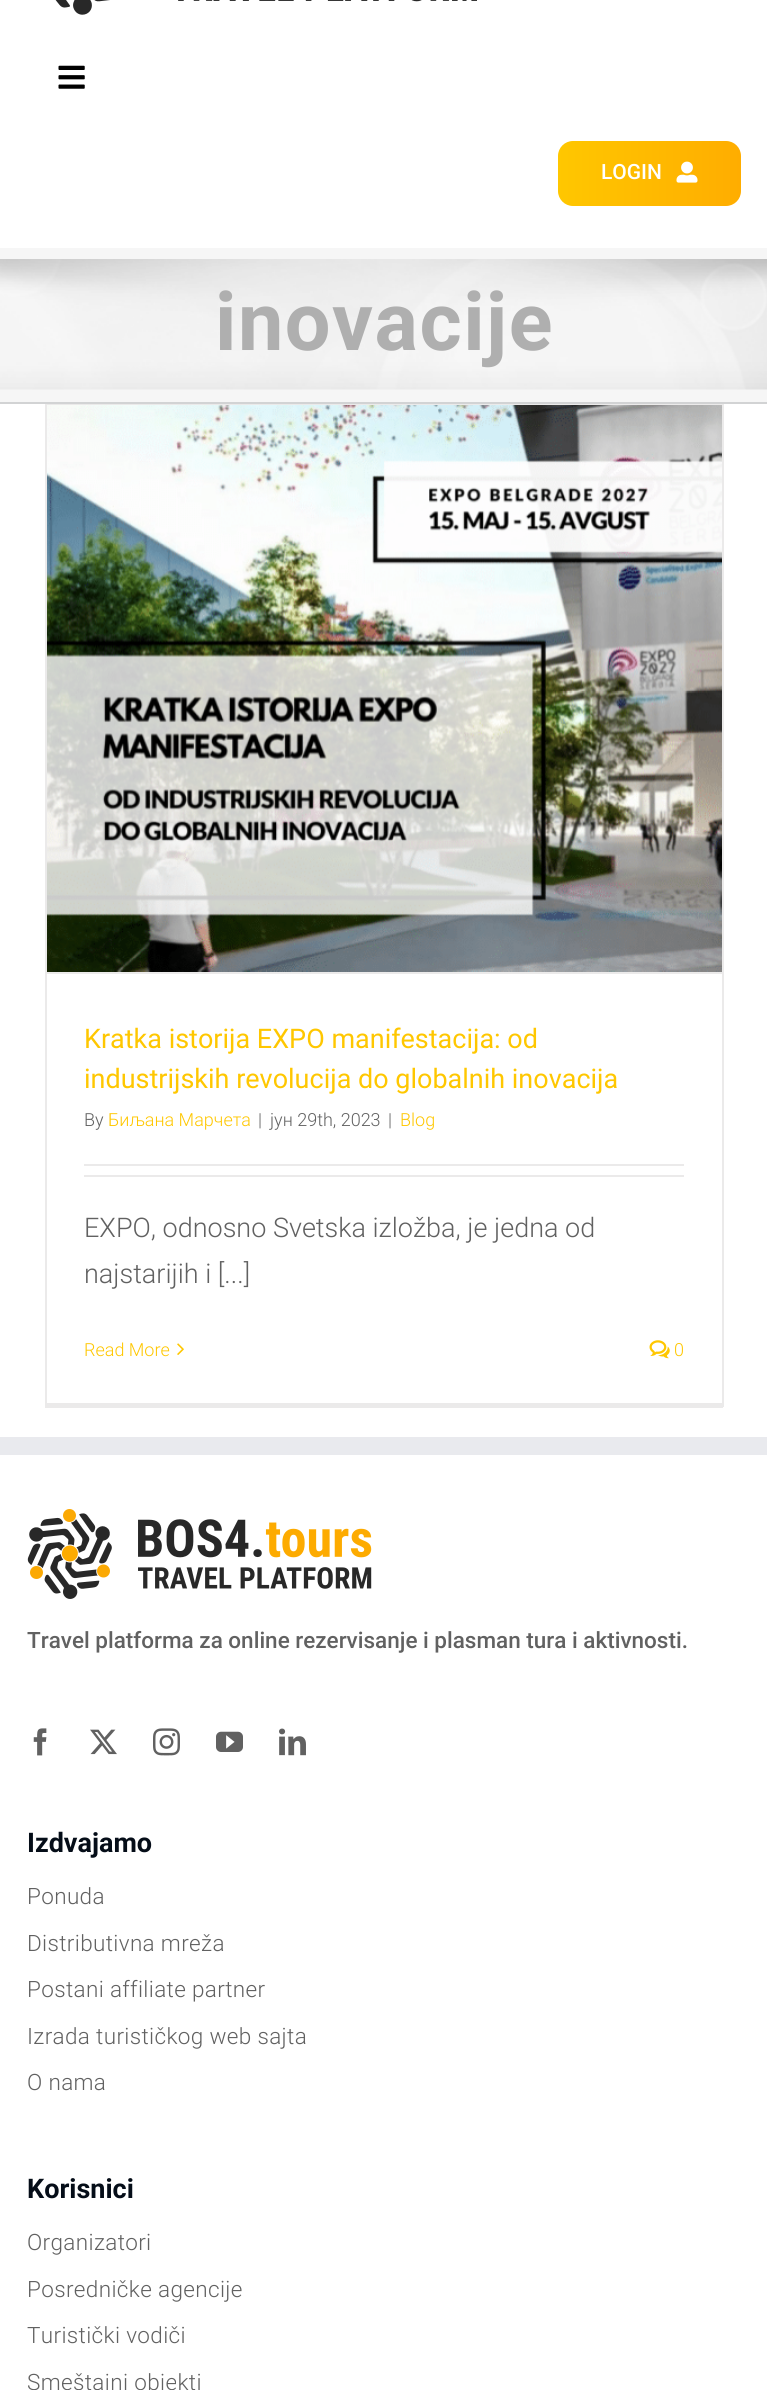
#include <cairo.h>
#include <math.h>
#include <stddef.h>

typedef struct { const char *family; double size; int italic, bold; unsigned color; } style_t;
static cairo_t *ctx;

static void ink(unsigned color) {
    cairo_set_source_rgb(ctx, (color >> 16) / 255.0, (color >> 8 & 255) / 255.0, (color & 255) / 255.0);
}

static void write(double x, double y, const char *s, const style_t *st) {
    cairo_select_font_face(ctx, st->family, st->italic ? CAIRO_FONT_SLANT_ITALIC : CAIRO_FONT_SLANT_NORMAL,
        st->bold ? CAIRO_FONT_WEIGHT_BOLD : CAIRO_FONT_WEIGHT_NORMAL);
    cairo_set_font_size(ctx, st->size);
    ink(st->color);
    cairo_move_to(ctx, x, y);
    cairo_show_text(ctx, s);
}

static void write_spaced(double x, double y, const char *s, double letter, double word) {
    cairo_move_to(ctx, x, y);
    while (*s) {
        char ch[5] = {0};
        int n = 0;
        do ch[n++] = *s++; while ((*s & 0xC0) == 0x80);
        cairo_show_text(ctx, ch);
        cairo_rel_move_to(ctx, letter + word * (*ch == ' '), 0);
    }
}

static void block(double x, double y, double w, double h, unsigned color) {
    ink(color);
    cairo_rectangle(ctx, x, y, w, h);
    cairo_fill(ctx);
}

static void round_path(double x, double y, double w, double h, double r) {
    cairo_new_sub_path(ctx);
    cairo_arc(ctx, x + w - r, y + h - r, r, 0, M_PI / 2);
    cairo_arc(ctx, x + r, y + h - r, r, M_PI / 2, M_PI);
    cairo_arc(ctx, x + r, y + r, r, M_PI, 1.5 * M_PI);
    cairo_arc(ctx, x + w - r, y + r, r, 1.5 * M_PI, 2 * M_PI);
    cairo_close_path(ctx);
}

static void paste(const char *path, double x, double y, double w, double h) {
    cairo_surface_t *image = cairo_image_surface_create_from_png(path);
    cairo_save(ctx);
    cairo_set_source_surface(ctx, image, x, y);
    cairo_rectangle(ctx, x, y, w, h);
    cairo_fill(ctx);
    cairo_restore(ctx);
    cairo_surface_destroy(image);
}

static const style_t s1 = {"Roboto Medium", 21, 0, 0, 0xffffff};
static const style_t s2 = {"Roboto", 27, 0, 0, 0xffc700};
static const style_t s3 = {"Roboto Light", 18, 0, 0, 0x616161};
static const style_t s4 = {"Roboto Light", 18, 0, 0, 0xffc700};
static const style_t s5 = {"Roboto Light", 27, 0, 0, 0x616161};
static const style_t s6 = {"Roboto Medium", 22.5, 0, 0, 0x616161};
static const style_t s7 = {"Roboto", 27, 0, 1, 0x050d18};

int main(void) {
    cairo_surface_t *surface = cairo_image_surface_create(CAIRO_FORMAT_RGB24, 767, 2390);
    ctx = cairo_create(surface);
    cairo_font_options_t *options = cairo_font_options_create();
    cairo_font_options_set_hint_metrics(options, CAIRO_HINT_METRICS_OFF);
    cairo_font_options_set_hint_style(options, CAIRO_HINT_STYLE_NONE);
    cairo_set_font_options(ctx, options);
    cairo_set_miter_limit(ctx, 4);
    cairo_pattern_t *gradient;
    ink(0xffffff);
    cairo_paint(ctx);
    paste("pic1.png", 55, 0, 422, 15);
    paste("pic2.png", 58, 65, 27, 24);
    gradient = cairo_pattern_create_linear(558, 173, 741, 173);
    cairo_pattern_add_color_stop_rgba(gradient, 0, 1, 0.78, 0, 1);
    cairo_pattern_add_color_stop_rgba(gradient, 1, 1, 0.678, 0, 1);
    cairo_set_source(ctx, gradient);
    cairo_pattern_destroy(gradient);
    round_path(558, 141, 183, 65, 15);
    cairo_fill(ctx);
    write(601, 179, "LOGIN", &s1);
    paste("pic3.png", 676, 161, 22, 22);
    block(0, 248, 767, 154, 0xf6f6f6);
    paste("pic4.png", 0, 259, 767, 131);
    block(0, 402, 767, 2, 0xd2d3d4);
    cairo_select_font_face(ctx, "Roboto", CAIRO_FONT_SLANT_NORMAL, CAIRO_FONT_WEIGHT_BOLD);
    cairo_set_font_size(ctx, 81);
    ink(0xafafaf);
    write_spaced(215, 350, "inovacije", 1.5, 0);
    block(45, 404, 678, 1, 0xebeaea);
    block(722, 404, 2, 1003, 0xebeaea);
    block(45, 1403, 678, 5, 0xebeaea);
    block(45, 404, 2, 1003, 0xebeaea);
    block(47, 972, 675, 2, 0xebeaea);
    paste("pic5.png", 47, 405, 675, 567);
    write(84, 1048, "Kratka istorija EXPO manifestacija: od", &s2);
    write(84, 1088, "industrijskih revolucija do globalnih inovacija", &s2);
    write(84, 1126, "By", &s3);
    write(108, 1126, "Биљана Марчета", &s4);
    write(258, 1126, "|", &s3);
    write(270, 1126, "јун 29th, 2023", &s3);
    write(388, 1126, "|", &s3);
    write(400, 1126, "Blog", &s4);
    block(84, 1164, 600, 2, 0xebeaea);
    block(84, 1175, 600, 2, 0xebeaea);
    write(84, 1237, "EXPO, odnosno Svetska izložba, je jedna od", &s5);
    write(84, 1283, "najstarijih i [...]", &s5);
    write(84, 1356, "Read More", &s4);
    paste("pic6.png", 177, 1343, 7, 12);
    paste("pic7.png", 649, 1340, 21, 19);
    write(674, 1356, "0", &s4);
    block(0, 1437, 767, 18, 0xe9eaee);
    paste("pic8.png", 27, 1509, 345, 90);
    write(27, 1648, "Travel platforma za online rezervisanje i plasman tura i aktivnosti.", &s6);
    paste("pic9.png", 33, 1728, 14, 28);
    paste("pic10.png", 90, 1729, 27, 26);
    paste("pic11.png", 153, 1728, 27, 28);
    paste("pic12.png", 216, 1731, 27, 21);
    paste("pic13.png", 279, 1728, 27, 28);
    write(27, 1852, "Izdvajamo", &s7);
    cairo_select_font_face(ctx, "Roboto Light", CAIRO_FONT_SLANT_NORMAL, CAIRO_FONT_WEIGHT_NORMAL);
    cairo_set_font_size(ctx, 22.5);
    ink(0x616161);
    write_spaced(27, 1904, "Ponuda", 0.35, 0);
    write_spaced(27, 1951, "Distributivna mreža", 0.35, 0);
    write_spaced(27, 1997, "Postani affiliate partner", 0.35, 0);
    write_spaced(27, 2044, "Izrada turističkog web sajta", 0.35, 0);
    write_spaced(27, 2090, "O nama", 0.35, 0);
    write(27, 2198, "Korisnici", &s7);
    cairo_select_font_face(ctx, "Roboto Light", CAIRO_FONT_SLANT_NORMAL, CAIRO_FONT_WEIGHT_NORMAL);
    cairo_set_font_size(ctx, 22.5);
    ink(0x616161);
    write_spaced(27, 2250, "Organizatori", 0.35, 0);
    write_spaced(27, 2297, "Posredničke agencije", 0.35, 0);
    write_spaced(27, 2343, "Turistički vodiči", 0.35, 0);
    write_spaced(27, 2390, "Smeštajni objekti", 0.35, 0);
    cairo_surface_write_to_png(surface, "screenshot.png");
    cairo_font_options_destroy(options);
    cairo_destroy(ctx);
    cairo_surface_destroy(surface);
    return 0;
}
